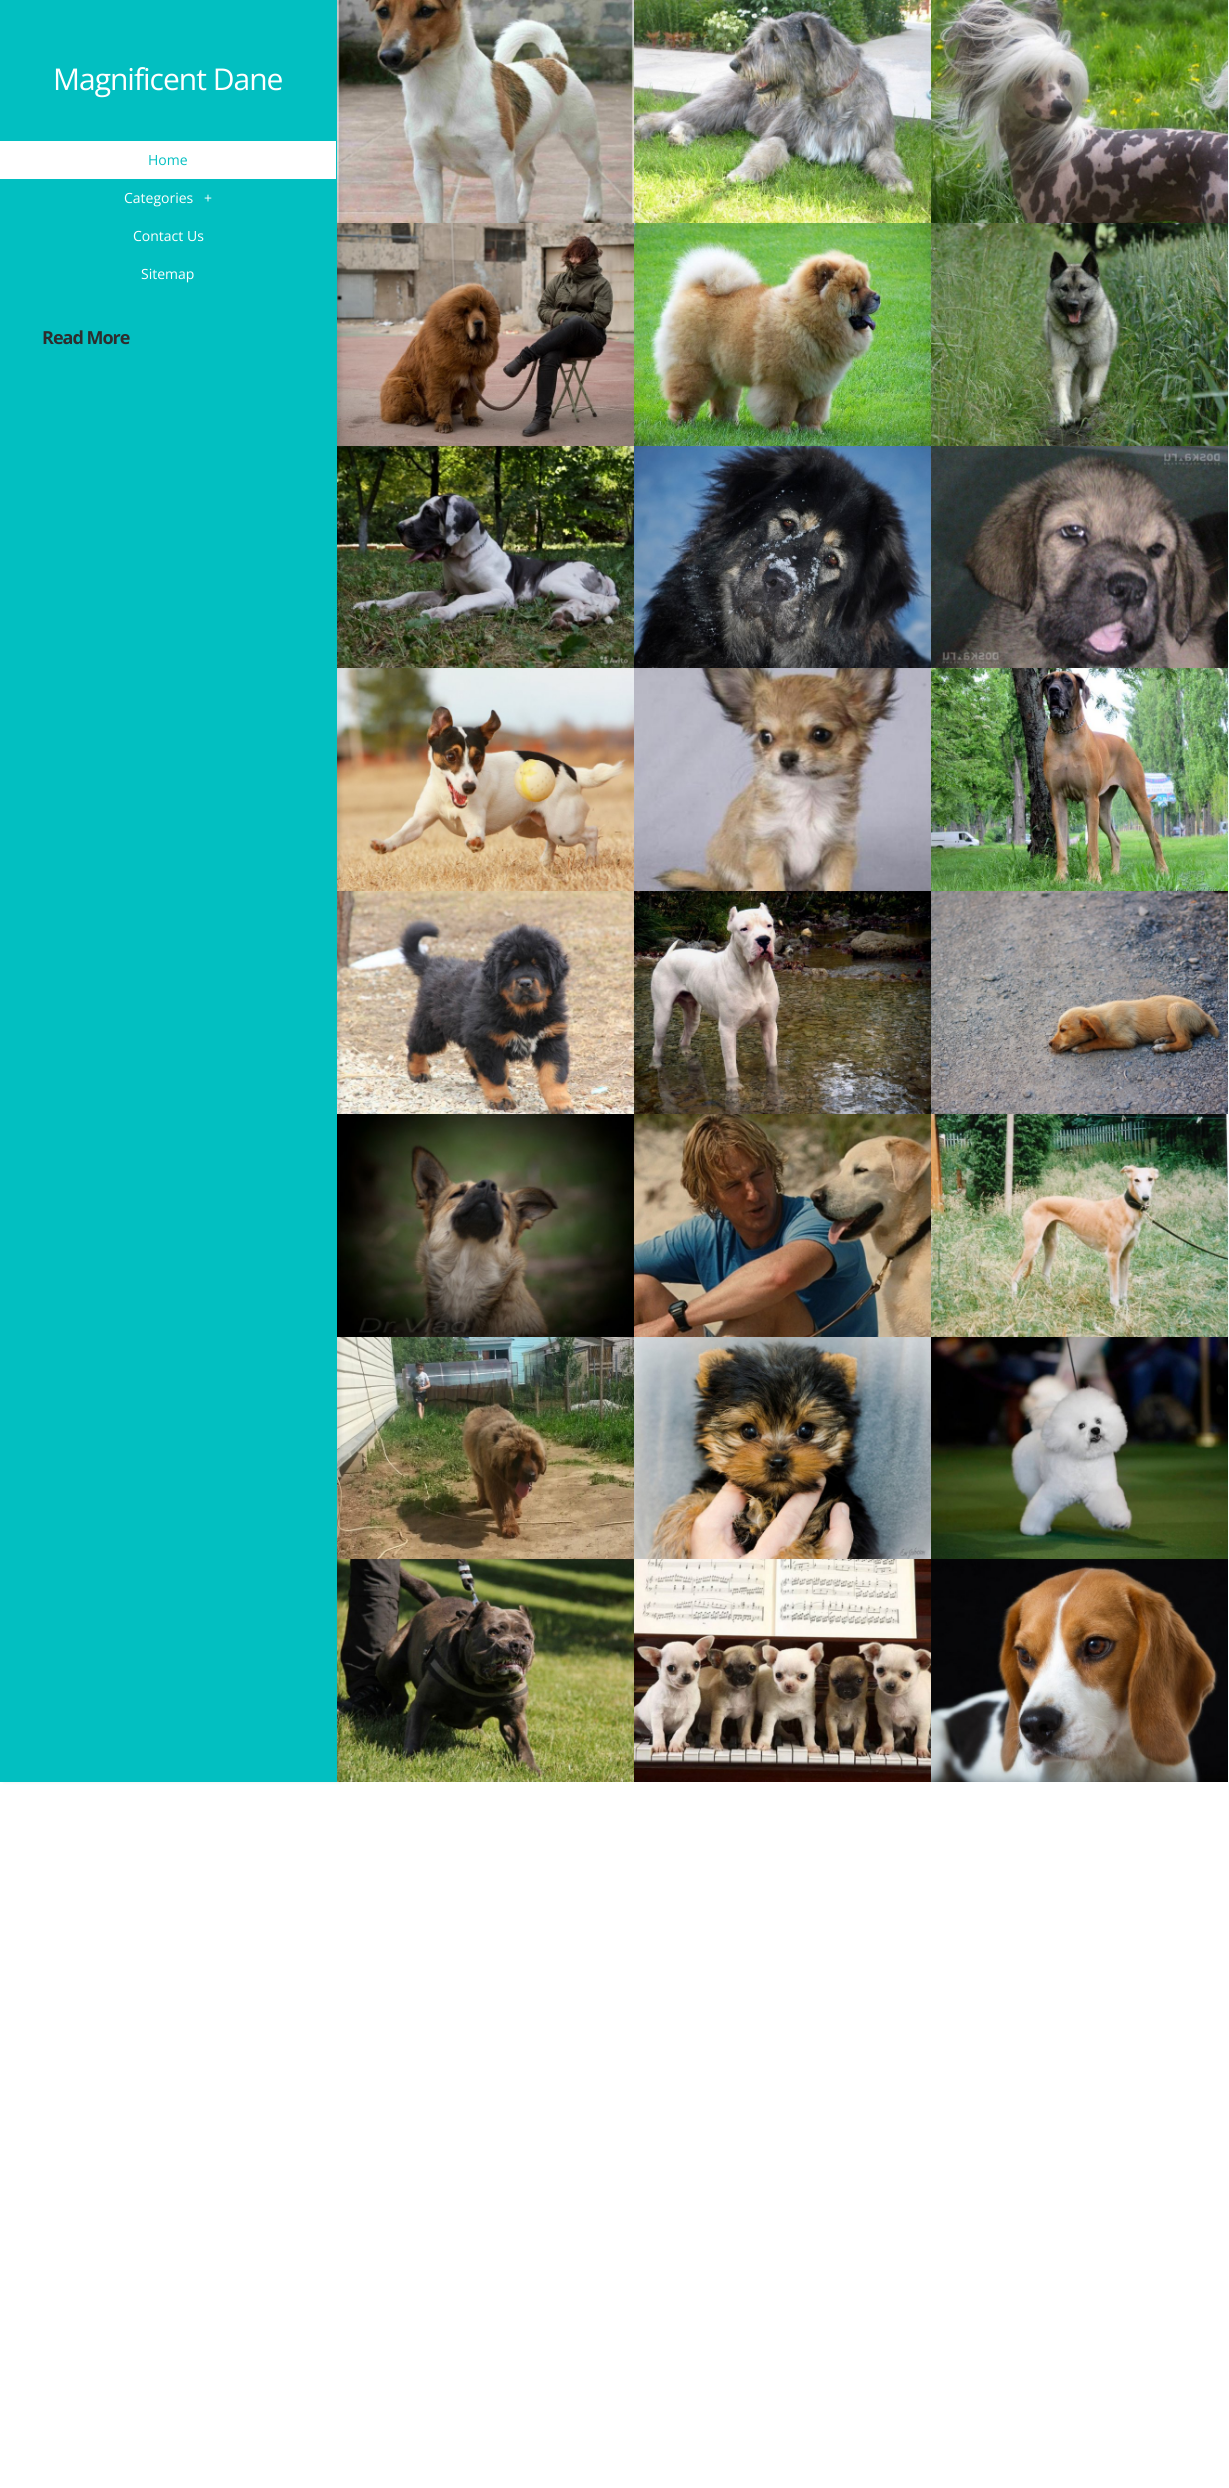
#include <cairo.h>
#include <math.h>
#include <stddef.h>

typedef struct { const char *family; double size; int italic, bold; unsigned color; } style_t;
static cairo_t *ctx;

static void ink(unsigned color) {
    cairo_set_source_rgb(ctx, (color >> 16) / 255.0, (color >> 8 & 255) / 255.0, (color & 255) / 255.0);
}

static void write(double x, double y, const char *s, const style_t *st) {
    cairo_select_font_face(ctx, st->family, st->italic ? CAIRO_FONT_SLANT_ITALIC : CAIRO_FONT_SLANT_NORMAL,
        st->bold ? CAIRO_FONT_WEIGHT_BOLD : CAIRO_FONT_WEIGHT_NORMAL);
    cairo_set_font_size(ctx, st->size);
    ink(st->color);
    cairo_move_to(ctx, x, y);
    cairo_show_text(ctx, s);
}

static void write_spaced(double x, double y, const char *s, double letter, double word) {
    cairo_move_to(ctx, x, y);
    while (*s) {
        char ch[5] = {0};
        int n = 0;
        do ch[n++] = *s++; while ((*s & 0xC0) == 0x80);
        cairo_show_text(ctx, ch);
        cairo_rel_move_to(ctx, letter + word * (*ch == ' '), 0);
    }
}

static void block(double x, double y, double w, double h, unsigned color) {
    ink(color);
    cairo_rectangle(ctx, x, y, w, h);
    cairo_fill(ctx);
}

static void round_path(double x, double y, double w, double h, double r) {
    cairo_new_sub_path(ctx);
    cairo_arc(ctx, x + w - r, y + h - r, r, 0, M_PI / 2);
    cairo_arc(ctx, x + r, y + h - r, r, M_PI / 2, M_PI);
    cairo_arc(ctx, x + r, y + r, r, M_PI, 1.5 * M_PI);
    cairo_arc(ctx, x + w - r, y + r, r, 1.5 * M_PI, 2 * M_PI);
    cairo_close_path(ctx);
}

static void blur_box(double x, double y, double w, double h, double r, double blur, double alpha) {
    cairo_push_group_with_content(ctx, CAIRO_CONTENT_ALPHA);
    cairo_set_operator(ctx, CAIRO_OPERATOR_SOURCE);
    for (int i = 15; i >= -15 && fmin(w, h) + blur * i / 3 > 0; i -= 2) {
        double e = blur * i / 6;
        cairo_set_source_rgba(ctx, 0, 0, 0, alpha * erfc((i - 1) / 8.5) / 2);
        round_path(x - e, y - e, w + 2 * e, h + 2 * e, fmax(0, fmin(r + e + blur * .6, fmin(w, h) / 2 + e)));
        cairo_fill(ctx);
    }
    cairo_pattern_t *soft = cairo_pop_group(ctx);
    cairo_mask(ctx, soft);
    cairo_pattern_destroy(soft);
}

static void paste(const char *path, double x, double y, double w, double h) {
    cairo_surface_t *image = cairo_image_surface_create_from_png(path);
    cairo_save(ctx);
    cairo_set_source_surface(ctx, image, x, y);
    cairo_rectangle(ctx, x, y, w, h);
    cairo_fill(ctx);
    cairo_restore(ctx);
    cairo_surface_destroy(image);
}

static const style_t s1 = {"Open Sans", 14, 0, 0, 0x02bfc1};
static const style_t s2 = {"Open Sans", 14, 0, 0, 0xffffff};

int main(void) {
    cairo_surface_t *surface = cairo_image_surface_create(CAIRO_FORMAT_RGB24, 1229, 2488);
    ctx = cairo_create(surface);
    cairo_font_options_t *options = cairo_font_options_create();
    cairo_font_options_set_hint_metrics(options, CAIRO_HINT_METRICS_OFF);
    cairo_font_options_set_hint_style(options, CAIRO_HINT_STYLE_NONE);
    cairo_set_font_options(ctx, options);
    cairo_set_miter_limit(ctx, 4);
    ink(0xffffff);
    cairo_paint(ctx);
    block(0, 0, 337, 1782, 0x02bfc1);
    paste("pic1.png", 337, 0, 297, 223);
    paste("pic4.png", 337, 223, 297, 223);
    paste("pic7.png", 337, 446, 297, 222);
    paste("pic10.png", 337, 668, 297, 223);
    paste("pic13.png", 337, 891, 297, 223);
    paste("pic16.png", 337, 1114, 297, 223);
    paste("pic19.png", 337, 1337, 297, 222);
    paste("pic22.png", 337, 1559, 297, 223);
    cairo_save(ctx);
    cairo_set_fill_rule(ctx, CAIRO_FILL_RULE_EVEN_ODD);
    cairo_new_path(ctx);
    cairo_move_to(ctx, 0, 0);
    cairo_line_to(ctx, 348, 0);
    cairo_line_to(ctx, 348, 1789);
    cairo_line_to(ctx, 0, 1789);
    cairo_close_path(ctx);
    cairo_move_to(ctx, 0, 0);
    cairo_line_to(ctx, 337, 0);
    cairo_line_to(ctx, 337, 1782);
    cairo_line_to(ctx, 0, 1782);
    cairo_close_path(ctx);
    cairo_clip(ctx);
    ink(0x000000);
    blur_box(4, 0, 337, 1782, 0, 2, 0.08);
    cairo_restore(ctx);
    paste("pic2.png", 634, 0, 297, 223);
    paste("pic3.png", 931, 0, 297, 223);
    paste("pic5.png", 634, 223, 297, 223);
    paste("pic6.png", 931, 223, 297, 223);
    paste("pic8.png", 634, 446, 297, 222);
    paste("pic9.png", 931, 446, 297, 222);
    paste("pic11.png", 634, 668, 297, 223);
    paste("pic12.png", 931, 668, 297, 223);
    paste("pic14.png", 634, 891, 297, 223);
    paste("pic15.png", 931, 891, 297, 223);
    paste("pic17.png", 634, 1114, 297, 223);
    paste("pic18.png", 931, 1114, 297, 223);
    paste("pic20.png", 634, 1337, 297, 222);
    paste("pic21.png", 931, 1337, 297, 222);
    paste("pic23.png", 634, 1559, 297, 223);
    paste("pic24.png", 931, 1559, 297, 223);
    cairo_select_font_face(ctx, "Open Sans", CAIRO_FONT_SLANT_NORMAL, CAIRO_FONT_WEIGHT_NORMAL);
    cairo_set_font_size(ctx, 30);
    ink(0xffffff);
    write_spaced(53, 90, "Magnificent Dane", -1, 0);
    block(0, 141, 336, 38, 0xffffff);
    write(148, 165, "Home", &s1);
    write(124, 203, "Categories", &s2);
    write(204, 203, "+", &s2);
    write(133, 241, "Contact Us", &s2);
    write(141, 279, "Sitemap", &s2);
    cairo_select_font_face(ctx, "Open Sans", CAIRO_FONT_SLANT_NORMAL, CAIRO_FONT_WEIGHT_BOLD);
    cairo_set_font_size(ctx, 18);
    ink(0x2e2e2e);
    write_spaced(42, 344, "Read More", -1, 0);
    cairo_surface_write_to_png(surface, "screenshot.png");
    cairo_font_options_destroy(options);
    cairo_destroy(ctx);
    cairo_surface_destroy(surface);
    return 0;
}
